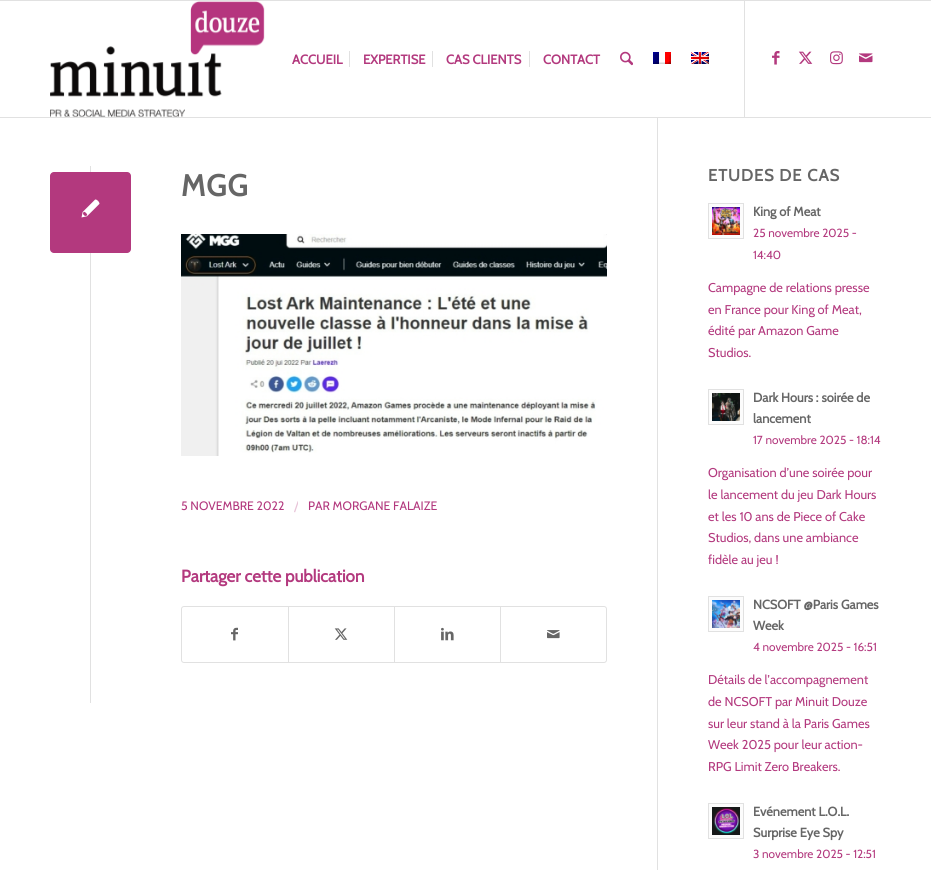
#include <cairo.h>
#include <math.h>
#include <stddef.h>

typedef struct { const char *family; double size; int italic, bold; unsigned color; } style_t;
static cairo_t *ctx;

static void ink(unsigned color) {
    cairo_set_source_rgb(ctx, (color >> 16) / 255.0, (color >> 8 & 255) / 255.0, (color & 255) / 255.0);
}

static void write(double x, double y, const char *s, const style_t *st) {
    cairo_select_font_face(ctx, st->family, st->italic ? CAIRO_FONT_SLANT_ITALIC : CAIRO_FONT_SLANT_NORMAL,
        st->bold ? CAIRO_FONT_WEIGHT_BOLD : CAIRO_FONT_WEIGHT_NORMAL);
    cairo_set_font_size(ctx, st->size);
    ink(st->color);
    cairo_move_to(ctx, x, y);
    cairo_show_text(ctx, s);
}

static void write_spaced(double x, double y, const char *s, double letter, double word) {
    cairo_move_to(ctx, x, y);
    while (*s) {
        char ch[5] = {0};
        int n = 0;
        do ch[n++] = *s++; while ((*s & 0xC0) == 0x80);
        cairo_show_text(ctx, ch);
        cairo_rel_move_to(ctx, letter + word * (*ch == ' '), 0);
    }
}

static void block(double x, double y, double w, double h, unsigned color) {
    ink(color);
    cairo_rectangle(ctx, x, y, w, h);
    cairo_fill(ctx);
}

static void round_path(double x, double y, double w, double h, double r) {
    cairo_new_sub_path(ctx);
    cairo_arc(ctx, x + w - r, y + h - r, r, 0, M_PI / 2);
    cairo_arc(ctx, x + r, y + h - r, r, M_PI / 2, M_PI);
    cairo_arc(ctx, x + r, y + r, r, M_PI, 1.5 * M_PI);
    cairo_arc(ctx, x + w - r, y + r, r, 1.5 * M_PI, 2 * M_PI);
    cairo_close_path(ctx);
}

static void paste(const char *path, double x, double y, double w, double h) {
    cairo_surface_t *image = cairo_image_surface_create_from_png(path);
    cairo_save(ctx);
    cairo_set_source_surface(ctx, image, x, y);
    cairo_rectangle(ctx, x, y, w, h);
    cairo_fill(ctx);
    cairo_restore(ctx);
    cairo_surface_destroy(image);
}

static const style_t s1 = {"Cabin", 13, 0, 1, 0xb3397e};
static const style_t s2 = {"Cabin", 12.2, 0, 0, 0xb3397e};
static const style_t s3 = {"Cabin", 14, 0, 0, 0xe8c4d8};
static const style_t s4 = {"Cabin", 17, 0, 1, 0xb3397e};
static const style_t s5 = {"Cabin", 12.75, 0, 1, 0x666666};
static const style_t s6 = {"Cabin", 11.75, 0, 0, 0xb3397e};
static const style_t s7 = {"Cabin", 12.75, 0, 0, 0xb3397e};

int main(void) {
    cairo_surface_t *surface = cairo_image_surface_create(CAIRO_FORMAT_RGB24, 931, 870);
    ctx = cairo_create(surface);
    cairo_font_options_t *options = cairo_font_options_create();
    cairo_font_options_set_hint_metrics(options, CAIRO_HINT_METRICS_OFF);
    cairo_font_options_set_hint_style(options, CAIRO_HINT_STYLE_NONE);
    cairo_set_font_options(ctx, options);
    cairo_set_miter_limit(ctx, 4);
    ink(0xffffff);
    cairo_paint(ctx);
    block(0, 0, 931, 1, 0xe1e1e1);
    block(657, 116, 1, 754, 0xe1e1e1);
    block(0, 117, 931, 1, 0xe1e1e1);
    paste("pic1.png", 50, 1, 215, 116);
    block(744, 1, 1, 116, 0xe1e1e1);
    write(292, 64, "ACCUEIL", &s1);
    write(363, 64, "EXPERTISE", &s1);
    block(349, 51, 1, 16, 0xe1e1e1);
    write(446, 64, "CAS CLIENTS", &s1);
    block(432, 51, 1, 16, 0xe1e1e1);
    write(543, 64, "CONTACT", &s1);
    block(529, 51, 1, 16, 0xe1e1e1);
    paste("pic2.png", 620, 51, 13, 15);
    paste("pic3.png", 653, 52, 18, 12);
    paste("pic4.png", 691, 52, 18, 12);
    paste("pic5.png", 772, 51, 8, 14);
    paste("pic6.png", 798, 51, 15, 13);
    paste("pic7.png", 830, 51, 13, 14);
    paste("pic8.png", 859, 53, 14, 10);
    block(657, 116, 1, 1, 0xffffff);
    block(90, 166, 1, 537, 0xe1e1e1);
    ink(0xb3397e);
    round_path(50, 172, 81, 81, 4);
    cairo_fill(ctx);
    paste("pic9.png", 81, 199, 19, 19);
    cairo_set_font_size(ctx, 30);
    ink(0x666666);
    write_spaced(181, 196, "MGG", 1, 0);
    paste("pic10.png", 181, 234, 426, 222);
    write(181, 510, "5 NOVEMBRE 2022", &s2);
    cairo_save(ctx);
    cairo_rectangle(ctx, 294, 494, 4, 25);
    cairo_clip(ctx);
    write(294, 511, "/", &s3);
    cairo_restore(ctx);
    write(308, 510, "PAR MORGANE FALAIZE", &s2);
    write(181, 582, "Partager cette publication", &s4);
    round_path(181.5, 606.5, 425, 56, 2.5);
    ink(0xe1e1e1);
    cairo_set_line_width(ctx, 1);
    cairo_stroke(ctx);
    paste("pic11.png", 231, 627, 7, 14);
    block(288, 607, 1, 55, 0xe1e1e1);
    paste("pic12.png", 334, 628, 14, 12);
    block(394, 607, 1, 55, 0xe1e1e1);
    paste("pic13.png", 441, 627, 13, 14);
    block(500, 607, 1, 55, 0xe1e1e1);
    paste("pic14.png", 547, 630, 13, 9);
    cairo_set_font_size(ctx, 16.5);
    ink(0x666666);
    write_spaced(708, 181, "ETUDES DE CAS", 1, 0);
    ink(0xfcfcfc);
    cairo_rectangle(ctx, 708.5, 203.5, 35, 35);
    cairo_fill_preserve(ctx);
    ink(0xe1e1e1);
    cairo_stroke(ctx);
    paste("pic15.png", 712, 207, 28, 28);
    write(753, 216, "King of Meat", &s5);
    write(753, 237, "25 novembre 2025 -", &s6);
    write(753, 259, "14:40", &s6);
    write(708, 292, "Campagne de relations presse", &s7);
    write(708, 314, "en France pour King of Meat,", &s7);
    write(708, 335, "édité par Amazon Game", &s7);
    write(708, 357, "Studios.", &s7);
    ink(0xfcfcfc);
    cairo_rectangle(ctx, 708.5, 389.5, 35, 35);
    cairo_fill_preserve(ctx);
    ink(0xe1e1e1);
    cairo_stroke(ctx);
    paste("pic16.png", 712, 393, 28, 28);
    write(753, 402, "Dark Hours : soirée de", &s5);
    write(753, 423, "lancement", &s5);
    write(753, 444, "17 novembre 2025 - 18:14", &s6);
    write(708, 477, "Organisation d’une soirée pour", &s7);
    write(708, 499, "le lancement du jeu Dark Hours", &s7);
    write(708, 521, "et les 10 ans de Piece of Cake", &s7);
    write(708, 542, "Studios, dans une ambiance", &s7);
    write(708, 564, "fidèle au jeu !", &s7);
    ink(0xfcfcfc);
    cairo_rectangle(ctx, 708.5, 596.5, 35, 35);
    cairo_fill_preserve(ctx);
    ink(0xe1e1e1);
    cairo_stroke(ctx);
    paste("pic17.png", 712, 600, 28, 28);
    write(753, 609, "NCSOFT @Paris Games", &s5);
    write(753, 630, "Week", &s5);
    write(753, 651, "4 novembre 2025 - 16:51", &s6);
    write(708, 684, "Détails de l’accompagnement", &s7);
    write(708, 706, "de NCSOFT par Minuit Douze", &s7);
    write(708, 728, "sur leur stand à la Paris Games", &s7);
    write(708, 749, "Week 2025 pour leur action-", &s7);
    write(708, 771, "RPG Limit Zero Breakers.", &s7);
    ink(0xfcfcfc);
    cairo_rectangle(ctx, 708.5, 803.5, 35, 35);
    cairo_fill_preserve(ctx);
    ink(0xe1e1e1);
    cairo_stroke(ctx);
    paste("pic18.png", 712, 807, 28, 28);
    write(753, 816, "Evénement L.O.L.", &s5);
    write(753, 837, "Surprise Eye Spy", &s5);
    write(753, 858, "3 novembre 2025 - 12:51", &s6);
    cairo_surface_write_to_png(surface, "screenshot.png");
    cairo_font_options_destroy(options);
    cairo_destroy(ctx);
    cairo_surface_destroy(surface);
    return 0;
}
